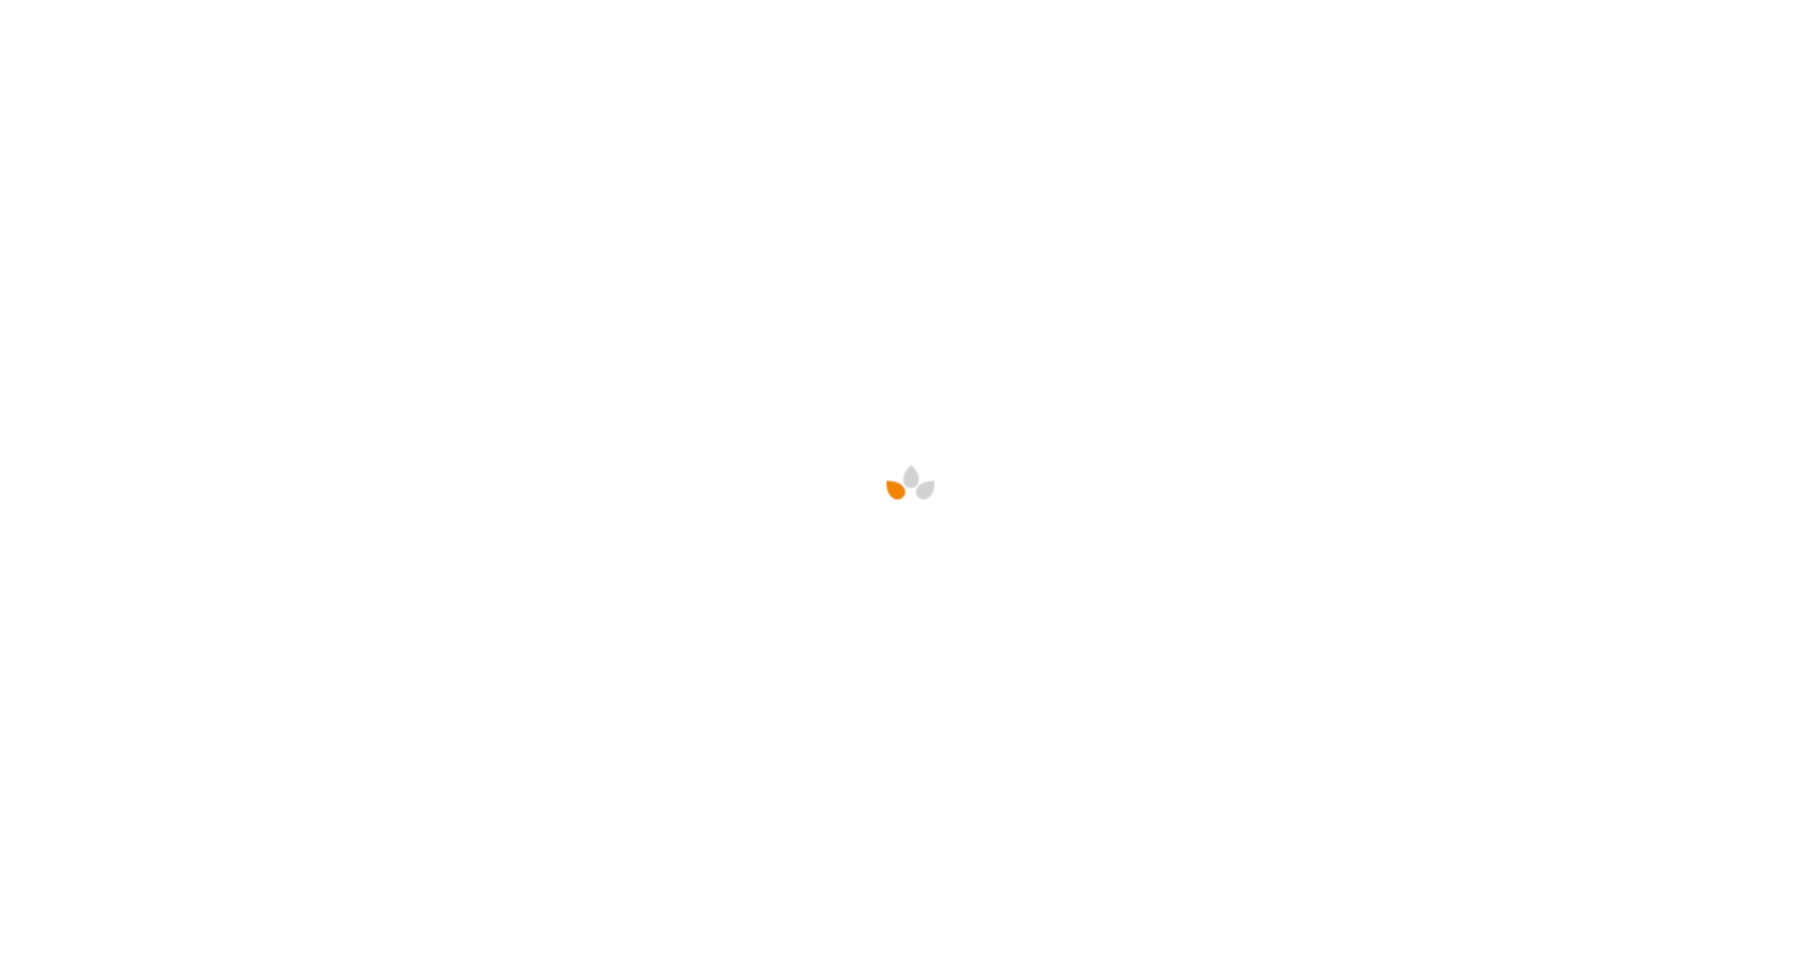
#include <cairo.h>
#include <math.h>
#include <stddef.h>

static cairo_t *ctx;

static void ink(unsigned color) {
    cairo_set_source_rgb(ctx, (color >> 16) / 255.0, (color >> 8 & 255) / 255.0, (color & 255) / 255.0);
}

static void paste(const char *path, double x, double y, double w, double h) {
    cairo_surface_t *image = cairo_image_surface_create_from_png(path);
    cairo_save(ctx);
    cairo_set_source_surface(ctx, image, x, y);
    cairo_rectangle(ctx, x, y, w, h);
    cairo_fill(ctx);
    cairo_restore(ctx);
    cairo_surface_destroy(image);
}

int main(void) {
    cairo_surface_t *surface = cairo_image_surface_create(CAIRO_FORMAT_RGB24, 1820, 966);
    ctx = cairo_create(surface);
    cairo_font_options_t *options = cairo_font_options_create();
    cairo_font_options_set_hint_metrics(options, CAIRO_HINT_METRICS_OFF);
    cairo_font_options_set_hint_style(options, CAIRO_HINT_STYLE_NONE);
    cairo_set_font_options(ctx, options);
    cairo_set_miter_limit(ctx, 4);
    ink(0xffffff);
    cairo_paint(ctx);
    paste("pic1.png", 886, 465, 49, 35);
    cairo_surface_write_to_png(surface, "screenshot.png");
    cairo_font_options_destroy(options);
    cairo_destroy(ctx);
    cairo_surface_destroy(surface);
    return 0;
}
